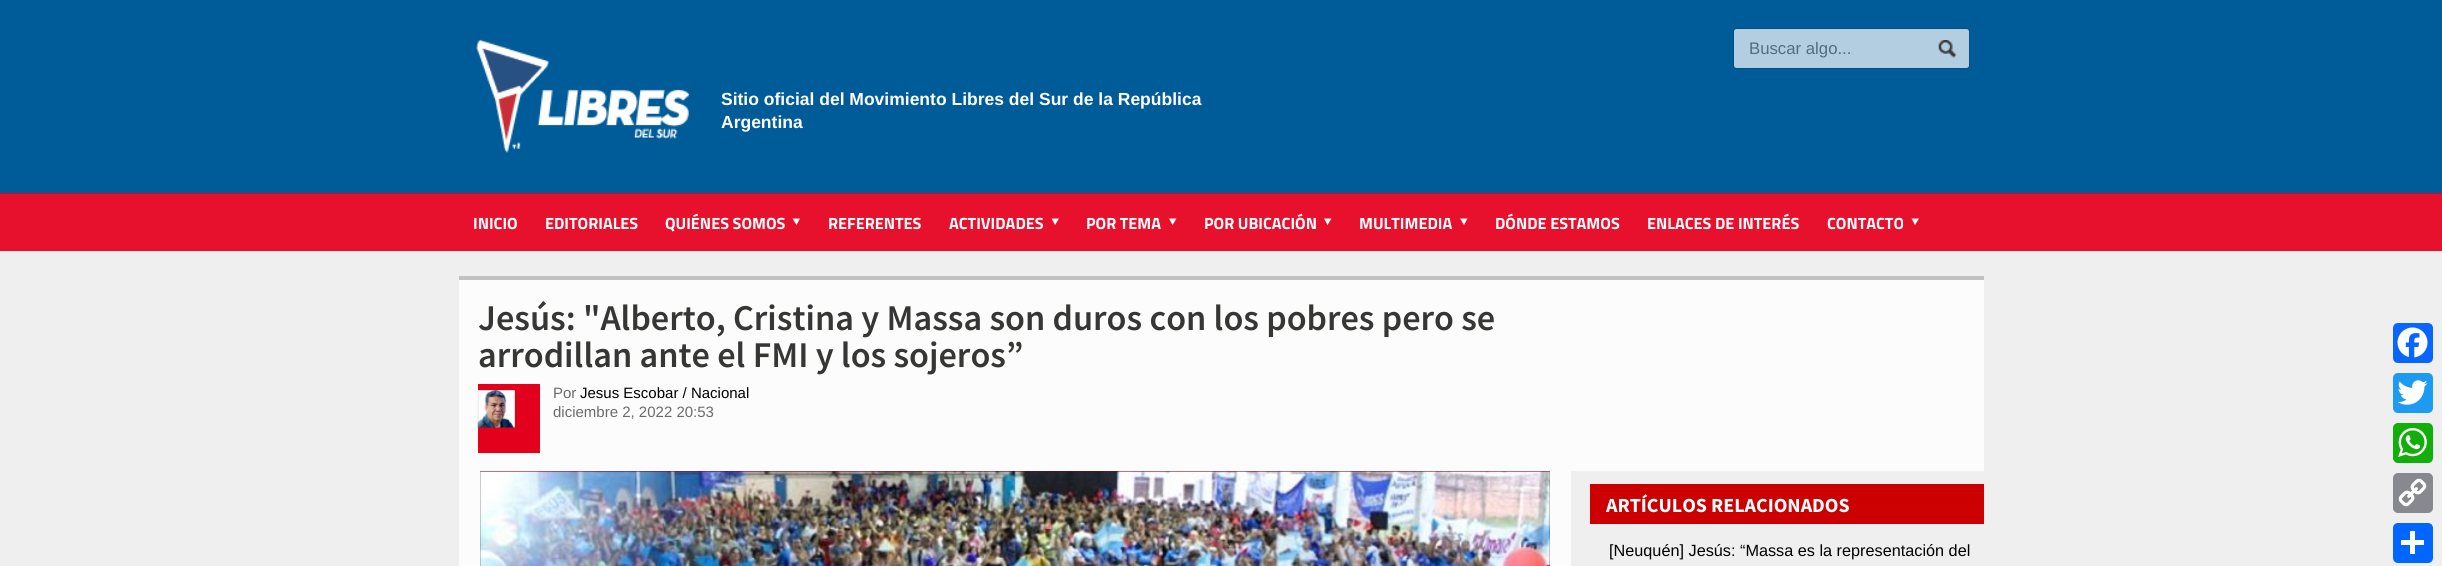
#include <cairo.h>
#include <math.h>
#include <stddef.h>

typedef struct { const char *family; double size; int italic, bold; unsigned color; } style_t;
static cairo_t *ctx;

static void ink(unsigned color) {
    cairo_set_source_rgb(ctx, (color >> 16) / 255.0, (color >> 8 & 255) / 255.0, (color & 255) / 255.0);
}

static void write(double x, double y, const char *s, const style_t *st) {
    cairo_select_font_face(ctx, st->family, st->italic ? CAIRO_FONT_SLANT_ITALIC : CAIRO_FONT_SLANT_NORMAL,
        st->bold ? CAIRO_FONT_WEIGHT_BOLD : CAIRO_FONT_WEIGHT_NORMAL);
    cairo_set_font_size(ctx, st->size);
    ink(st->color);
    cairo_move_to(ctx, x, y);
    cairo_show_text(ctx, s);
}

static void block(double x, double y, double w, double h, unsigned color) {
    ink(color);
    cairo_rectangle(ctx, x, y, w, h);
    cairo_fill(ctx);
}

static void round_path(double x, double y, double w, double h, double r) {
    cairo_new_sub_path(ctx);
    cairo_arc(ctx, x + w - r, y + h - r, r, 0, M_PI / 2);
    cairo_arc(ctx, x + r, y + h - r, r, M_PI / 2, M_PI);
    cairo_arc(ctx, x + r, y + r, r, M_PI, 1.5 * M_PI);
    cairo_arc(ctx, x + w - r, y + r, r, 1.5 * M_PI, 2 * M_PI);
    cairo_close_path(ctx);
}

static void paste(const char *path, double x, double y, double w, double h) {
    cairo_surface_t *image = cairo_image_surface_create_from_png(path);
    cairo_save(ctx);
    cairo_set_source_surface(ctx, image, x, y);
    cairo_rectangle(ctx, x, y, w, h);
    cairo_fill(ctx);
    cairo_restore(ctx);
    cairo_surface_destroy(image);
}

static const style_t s1 = {"Liberation Sans", 16.75, 0, 0, 0x526d80};
static const style_t s2 = {"Liberation Sans", 17.5, 0, 1, 0xffffff};
static const style_t s3 = {"Titillium Web", 16.25, 0, 1, 0xffffff};
static const style_t s4 = {"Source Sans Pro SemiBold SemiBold", 36.25, 0, 0, 0x363635};
static const style_t s5 = {"Liberation Sans", 15, 0, 0, 0x6b6b6b};
static const style_t s6 = {"Liberation Sans", 15, 0, 0, 0x000000};
static const style_t s7 = {"Source Sans Pro", 20, 0, 1, 0xffffff};
static const style_t s8 = {"Liberation Sans", 16.25, 0, 0, 0x000000};

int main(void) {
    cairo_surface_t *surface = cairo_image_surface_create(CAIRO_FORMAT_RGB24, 2442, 566);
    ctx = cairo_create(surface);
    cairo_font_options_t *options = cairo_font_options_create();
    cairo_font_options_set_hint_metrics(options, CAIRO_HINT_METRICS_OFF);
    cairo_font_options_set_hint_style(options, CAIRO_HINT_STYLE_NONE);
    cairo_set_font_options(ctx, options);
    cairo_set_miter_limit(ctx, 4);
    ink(0xf0efef);
    cairo_paint(ctx);
    block(0, 0, 2442, 193, 0x005b99);
    paste("pic1.png", 476, 39, 214, 114);
    round_path(1733.5, 28.5, 236, 40, 3.5);
    ink(0x004e84);
    cairo_set_line_width(ctx, 1);
    cairo_stroke(ctx);
    ink(0xb3cee0);
    round_path(1734, 29, 235, 39, 2.5);
    cairo_fill(ctx);
    write(1749, 54, "Buscar algo...", &s1);
    paste("pic2.png", 1938, 40, 19, 18);
    write(721, 105, "Sitio oficial del Movimiento Libres del Sur de la República", &s2);
    write(721, 128, "Argentina", &s2);
    block(0, 194, 2442, 57, 0xe8112d);
    block(0, 193, 2442, 1, 0xc50e26);
    write(473, 229, "INICIO", &s3);
    write(545, 229, "EDITORIALES", &s3);
    write(665, 229, "QUIÉNES SOMOS", &s3);
    cairo_new_path(ctx);
    cairo_move_to(ctx, 800, 218.5);
    cairo_line_to(ctx, 796.5, 225);
    cairo_line_to(ctx, 792.5, 218.5);
    cairo_close_path(ctx);
    cairo_fill(ctx);
    write(828, 229, "REFERENTES", &s3);
    write(949, 229, "ACTIVIDADES", &s3);
    cairo_new_path(ctx);
    cairo_move_to(ctx, 1059, 218.5);
    cairo_line_to(ctx, 1055, 225);
    cairo_line_to(ctx, 1051.5, 218.5);
    cairo_close_path(ctx);
    cairo_fill(ctx);
    write(1086, 229, "POR TEMA", &s3);
    cairo_new_path(ctx);
    cairo_move_to(ctx, 1176.5, 218.5);
    cairo_line_to(ctx, 1172.5, 225);
    cairo_line_to(ctx, 1169, 218.5);
    cairo_close_path(ctx);
    cairo_fill(ctx);
    write(1204, 229, "POR UBICACIÓN", &s3);
    cairo_new_path(ctx);
    cairo_move_to(ctx, 1331.5, 218.5);
    cairo_line_to(ctx, 1327.5, 225);
    cairo_line_to(ctx, 1324, 218.5);
    cairo_close_path(ctx);
    cairo_fill(ctx);
    write(1359, 229, "MULTIMEDIA", &s3);
    cairo_new_path(ctx);
    cairo_move_to(ctx, 1467.5, 218.5);
    cairo_line_to(ctx, 1464, 225);
    cairo_line_to(ctx, 1460, 218.5);
    cairo_close_path(ctx);
    cairo_fill(ctx);
    write(1495, 229, "DÓNDE ESTAMOS", &s3);
    write(1647, 229, "ENLACES DE INTERÉS", &s3);
    write(1827, 229, "CONTACTO", &s3);
    cairo_new_path(ctx);
    cairo_move_to(ctx, 1919, 218.5);
    cairo_line_to(ctx, 1915, 225);
    cairo_line_to(ctx, 1911.5, 218.5);
    cairo_close_path(ctx);
    cairo_fill(ctx);
    block(459, 280, 1525, 191, 0xfcfcfc);
    block(459, 276, 1525, 4, 0xc1c1c1);
    write(478, 330, "Jesús: \"Alberto, Cristina y Massa son duros con los pobres pero se", &s4);
    write(478, 367, "arrodillan ante el FMI y los sojeros”", &s4);
    block(478, 384, 62, 69, 0xe2001c);
    paste("pic3.png", 477, 390, 38, 38);
    write(553, 398, "Por", &s5);
    write(580, 398, "Jesus Escobar / Nacional", &s6);
    write(553, 417, "diciembre 2, 2022 20:53", &s5);
    block(459, 471, 1112, 95, 0xfcfcfc);
    block(480, 471, 1070, 1, 0xe2001c);
    paste("pic4.png", 480, 471, 1070, 95);
    cairo_rectangle(ctx, 480.5, 471.5, 1069, 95);
    cairo_set_source_rgba(ctx, 0, 0, 0, 0.2);
    cairo_stroke(ctx);
    block(1590, 484, 394, 40, 0xcc0000);
    write(1606, 512, "ARTÍCULOS RELACIONADOS", &s7);
    write(1609, 556, "[Neuquén] Jesús: “Massa es la representación del", &s8);
    ink(0x0866ff);
    round_path(2393, 323, 40, 40, 5);
    cairo_fill(ctx);
    paste("pic5.png", 2397, 327, 31, 31);
    ink(0x1d9bf0);
    round_path(2393, 373, 40, 40, 5);
    cairo_fill(ctx);
    paste("pic6.png", 2397, 380, 31, 25);
    ink(0x12af0a);
    round_path(2393, 423, 40, 40, 5);
    cairo_fill(ctx);
    paste("pic7.png", 2398, 428, 29, 29);
    ink(0x888990);
    round_path(2393, 473, 40, 40, 5);
    cairo_fill(ctx);
    paste("pic8.png", 2398, 478, 29, 29);
    ink(0x0166ff);
    round_path(2393, 523, 40, 40, 5);
    cairo_fill(ctx);
    block(2410, 531, 5, 23, 0xffffff);
    block(2401, 540, 23, 5, 0xffffff);
    cairo_surface_write_to_png(surface, "screenshot.png");
    cairo_font_options_destroy(options);
    cairo_destroy(ctx);
    cairo_surface_destroy(surface);
    return 0;
}
